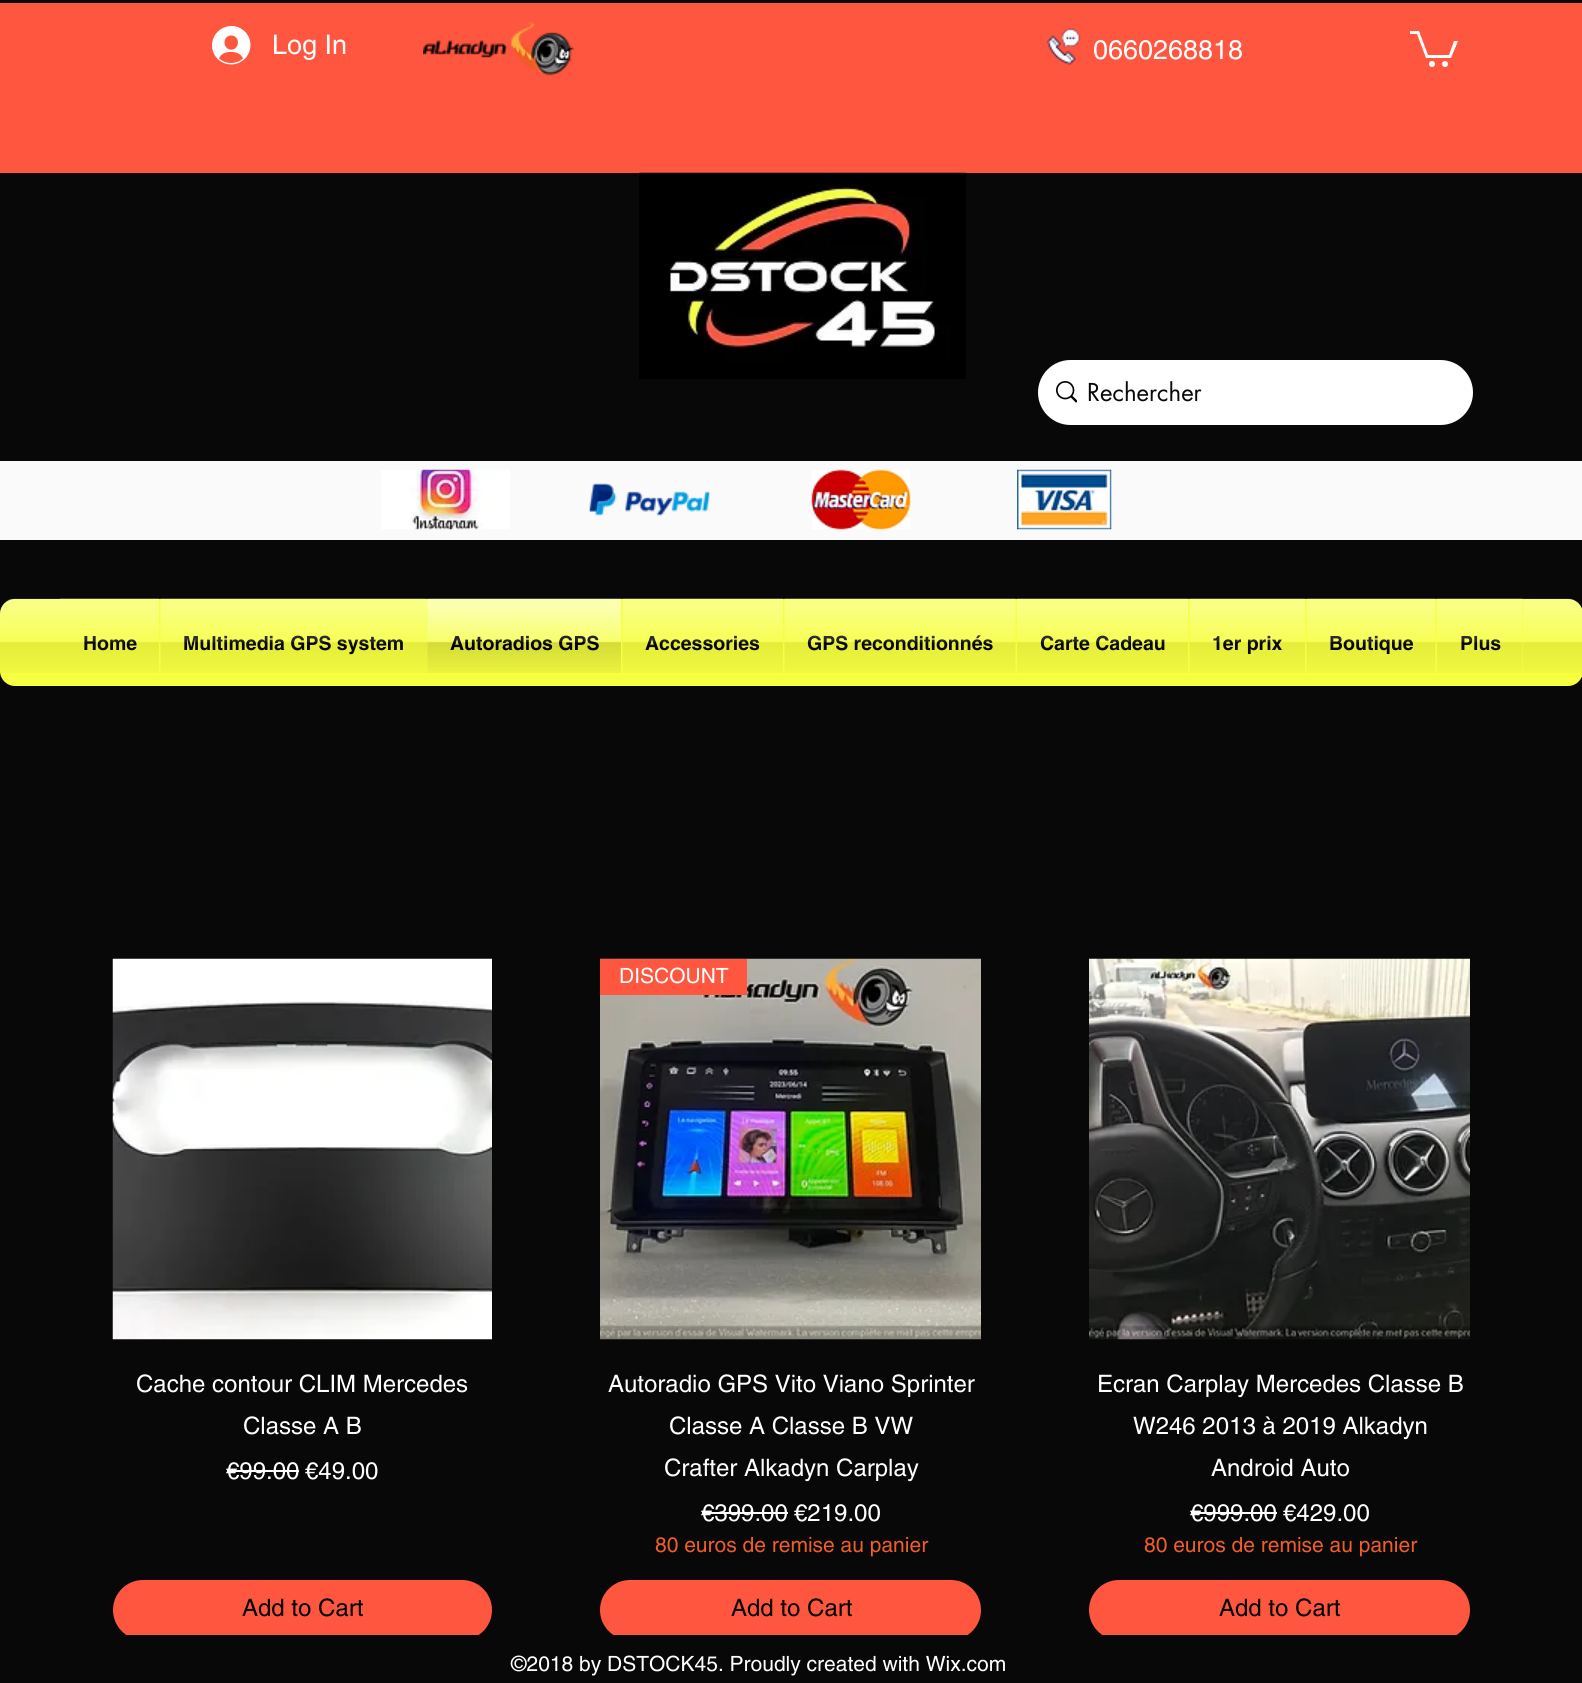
#include <cairo.h>
#include <math.h>
#include <stddef.h>

typedef struct { const char *family; double size; int italic, bold; unsigned color; } style_t;
static cairo_t *ctx;

static void ink(unsigned color) {
    cairo_set_source_rgb(ctx, (color >> 16) / 255.0, (color >> 8 & 255) / 255.0, (color & 255) / 255.0);
}

static void write(double x, double y, const char *s, const style_t *st) {
    cairo_select_font_face(ctx, st->family, st->italic ? CAIRO_FONT_SLANT_ITALIC : CAIRO_FONT_SLANT_NORMAL,
        st->bold ? CAIRO_FONT_WEIGHT_BOLD : CAIRO_FONT_WEIGHT_NORMAL);
    cairo_set_font_size(ctx, st->size);
    ink(st->color);
    cairo_move_to(ctx, x, y);
    cairo_show_text(ctx, s);
}

static void block(double x, double y, double w, double h, unsigned color) {
    ink(color);
    cairo_rectangle(ctx, x, y, w, h);
    cairo_fill(ctx);
}

static void round_path(double x, double y, double w, double h, double r) {
    cairo_new_sub_path(ctx);
    cairo_arc(ctx, x + w - r, y + h - r, r, 0, M_PI / 2);
    cairo_arc(ctx, x + r, y + h - r, r, M_PI / 2, M_PI);
    cairo_arc(ctx, x + r, y + r, r, M_PI, 1.5 * M_PI);
    cairo_arc(ctx, x + w - r, y + r, r, 1.5 * M_PI, 2 * M_PI);
    cairo_close_path(ctx);
}

static void paste(const char *path, double x, double y, double w, double h) {
    cairo_surface_t *image = cairo_image_surface_create_from_png(path);
    cairo_save(ctx);
    cairo_set_source_surface(ctx, image, x, y);
    cairo_rectangle(ctx, x, y, w, h);
    cairo_fill(ctx);
    cairo_restore(ctx);
    cairo_surface_destroy(image);
}

static const style_t s1 = {"helvetica", 27, 0, 0, 0xffffff};
static const style_t s2 = {"futura", 24, 0, 0, 0x080808};
static const style_t s3 = {"helvetica", 19.5, 0, 1, 0x080808};
static const style_t s4 = {"helvetica", 19.5, 0, 1, 0x000000};
static const style_t s5 = {"helvetica", 24, 0, 0, 0xffffff};
static const style_t s6 = {"helvetica", 24, 0, 0, 0x000000};
static const style_t s7 = {"helvetica", 21, 0, 0, 0xffffff};
static const style_t s8 = {"helvetica", 21, 0, 0, 0xef5d28};

int main(void) {
    cairo_surface_t *surface = cairo_image_surface_create(CAIRO_FORMAT_RGB24, 1582, 1683);
    ctx = cairo_create(surface);
    cairo_font_options_t *options = cairo_font_options_create();
    cairo_font_options_set_hint_metrics(options, CAIRO_HINT_METRICS_OFF);
    cairo_font_options_set_hint_style(options, CAIRO_HINT_STYLE_NONE);
    cairo_set_font_options(ctx, options);
    cairo_set_miter_limit(ctx, 4);
    ink(0x080808);
    cairo_paint(ctx);
    block(0, 3, 1582, 170, 0xff5640);
    paste("pic1.png", 212, 26, 39, 39);
    write(272, 54, "Log In", &s1);
    paste("pic2.png", 423, 22, 152, 54);
    paste("pic3.png", 1046, 28, 35, 37);
    write(1093, 59, "0660268818", &s1);
    cairo_new_path(ctx);
    cairo_move_to(ctx, 1458, 41);
    cairo_line_to(ctx, 1451, 58);
    cairo_line_to(ctx, 1426, 58);
    cairo_line_to(ctx, 1417, 34);
    cairo_line_to(ctx, 1410, 34);
    cairo_line_to(ctx, 1410, 31);
    cairo_line_to(ctx, 1419, 31);
    cairo_line_to(ctx, 1428, 55);
    cairo_line_to(ctx, 1449, 55);
    cairo_line_to(ctx, 1454, 41);
    cairo_fill(ctx);
    cairo_arc(ctx, 1445, 64, 3, 0, 2 * M_PI);
    cairo_fill(ctx);
    cairo_arc(ctx, 1432, 64, 3, 0, 2 * M_PI);
    cairo_fill(ctx);
    paste("pic4.png", 639, 172, 327, 207);
    round_path(1038, 360, 435, 65, 32.5);
    cairo_fill(ctx);
    paste("pic5.png", 1056, 381, 21, 22);
    write(1087, 401, "Rechercher", &s2);
    block(0, 461, 1582, 79, 0xfafafa);
    paste("pic6.png", 381, 469, 129, 61);
    paste("pic7.png", 589, 483, 121, 34);
    paste("pic8.png", 811, 469, 100, 61);
    paste("pic9.png", 1017, 469, 95, 61);
    ink(0xf6ff40);
    round_path(0, 599, 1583, 87, 15);
    cairo_fill(ctx);
    paste("pic10.png", 0, 598, 1582, 75);
    block(60, 599, 366, 74, 0xf6ff40);
    write(83, 650, "Home", &s3);
    paste("pic11.png", 60, 598, 99, 75);
    write(183, 650, "Multimedia GPS system", &s3);
    paste("pic12.png", 160, 598, 266, 75);
    write(450, 650, "Autoradios GPS", &s4);
    paste("pic13.png", 427, 598, 194, 75);
    block(621, 599, 902, 74, 0xf6ff40);
    write(645, 650, "Accessories", &s3);
    paste("pic14.png", 622, 598, 161, 75);
    write(807, 650, "GPS reconditionnés", &s3);
    paste("pic15.png", 784, 598, 232, 75);
    write(1040, 650, "Carte Cadeau", &s3);
    paste("pic16.png", 1017, 598, 171, 75);
    write(1212, 650, "1er prix", &s3);
    paste("pic17.png", 1189, 598, 116, 75);
    write(1329, 650, "Boutique", &s3);
    paste("pic18.png", 1306, 598, 130, 75);
    write(1460, 650, "Plus", &s3);
    paste("pic19.png", 1437, 598, 86, 75);
    paste("pic20.png", 112, 958, 380, 382);
    write(136, 1392, "Cache contour CLIM Mercedes", &s5);
    write(243, 1434, "Classe A B", &s5);
    write(226, 1479, "€99.00", &s5);
    block(227, 1470, 72, 2, 0xffffff);
    write(305, 1479, "€49.00", &s5);
    ink(0xff5640);
    round_path(113, 1580, 379, 60, 30);
    cairo_fill(ctx);
    write(242, 1616, "Add to Cart", &s6);
    paste("pic21.png", 600, 958, 381, 382);
    block(600, 959, 147, 36, 0xff5640);
    write(619, 983, "DISCOUNT", &s7);
    write(608, 1392, "Autoradio GPS Vito Viano Sprinter", &s5);
    write(669, 1434, "Classe A Classe B VW", &s5);
    write(664, 1476, "Crafter Alkadyn Carplay", &s5);
    write(701, 1521, "€399.00", &s5);
    block(702, 1512, 86, 2, 0xffffff);
    write(794, 1521, "€219.00", &s5);
    write(655, 1552, "80 euros de remise au panier", &s8);
    ink(0xff5640);
    round_path(600, 1580, 381, 60, 30);
    cairo_fill(ctx);
    write(731, 1616, "Add to Cart", &s6);
    paste("pic22.png", 1089, 958, 381, 382);
    write(1097, 1392, "Ecran Carplay Mercedes Classe B", &s5);
    write(1133, 1434, "W246 2013 à 2019 Alkadyn", &s5);
    write(1211, 1476, "Android Auto", &s5);
    write(1190, 1521, "€999.00", &s5);
    block(1191, 1512, 86, 2, 0xffffff);
    write(1283, 1521, "€429.00", &s5);
    write(1144, 1552, "80 euros de remise au panier", &s8);
    ink(0xff5640);
    round_path(1089, 1580, 381, 60, 30);
    cairo_fill(ctx);
    write(1219, 1616, "Add to Cart", &s6);
    block(126, 1635, 1331, 5, 0x080808);
    write(511, 1671, "©2018 by DSTOCK45. Proudly created with Wix.com", &s7);
    cairo_surface_write_to_png(surface, "screenshot.png");
    cairo_font_options_destroy(options);
    cairo_destroy(ctx);
    cairo_surface_destroy(surface);
    return 0;
}
